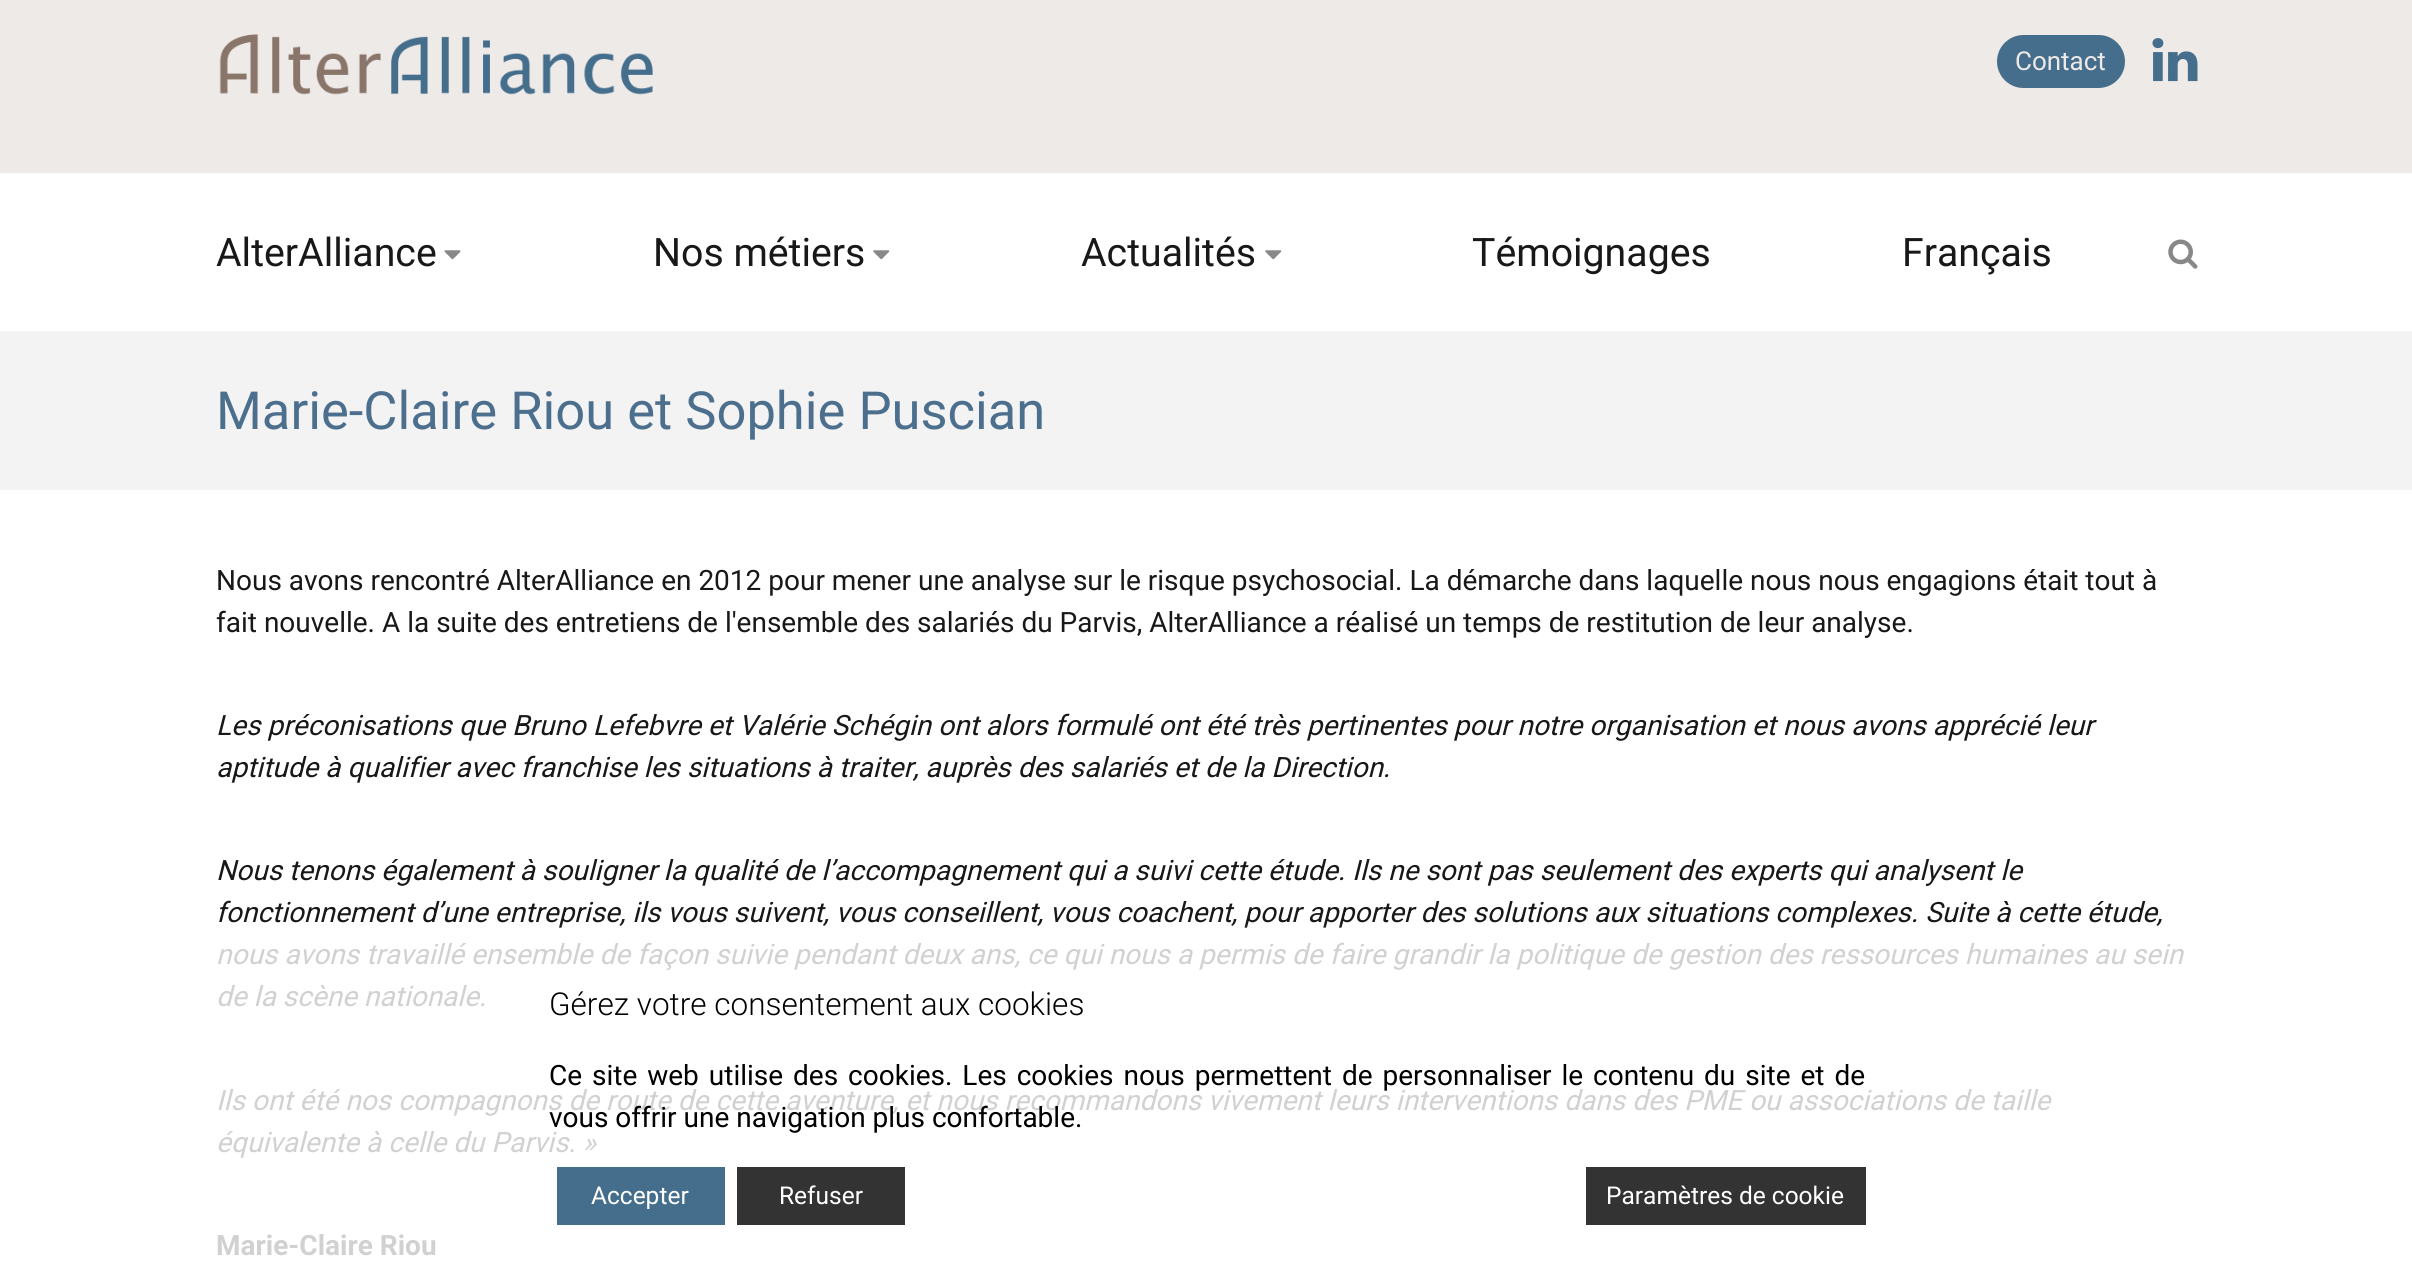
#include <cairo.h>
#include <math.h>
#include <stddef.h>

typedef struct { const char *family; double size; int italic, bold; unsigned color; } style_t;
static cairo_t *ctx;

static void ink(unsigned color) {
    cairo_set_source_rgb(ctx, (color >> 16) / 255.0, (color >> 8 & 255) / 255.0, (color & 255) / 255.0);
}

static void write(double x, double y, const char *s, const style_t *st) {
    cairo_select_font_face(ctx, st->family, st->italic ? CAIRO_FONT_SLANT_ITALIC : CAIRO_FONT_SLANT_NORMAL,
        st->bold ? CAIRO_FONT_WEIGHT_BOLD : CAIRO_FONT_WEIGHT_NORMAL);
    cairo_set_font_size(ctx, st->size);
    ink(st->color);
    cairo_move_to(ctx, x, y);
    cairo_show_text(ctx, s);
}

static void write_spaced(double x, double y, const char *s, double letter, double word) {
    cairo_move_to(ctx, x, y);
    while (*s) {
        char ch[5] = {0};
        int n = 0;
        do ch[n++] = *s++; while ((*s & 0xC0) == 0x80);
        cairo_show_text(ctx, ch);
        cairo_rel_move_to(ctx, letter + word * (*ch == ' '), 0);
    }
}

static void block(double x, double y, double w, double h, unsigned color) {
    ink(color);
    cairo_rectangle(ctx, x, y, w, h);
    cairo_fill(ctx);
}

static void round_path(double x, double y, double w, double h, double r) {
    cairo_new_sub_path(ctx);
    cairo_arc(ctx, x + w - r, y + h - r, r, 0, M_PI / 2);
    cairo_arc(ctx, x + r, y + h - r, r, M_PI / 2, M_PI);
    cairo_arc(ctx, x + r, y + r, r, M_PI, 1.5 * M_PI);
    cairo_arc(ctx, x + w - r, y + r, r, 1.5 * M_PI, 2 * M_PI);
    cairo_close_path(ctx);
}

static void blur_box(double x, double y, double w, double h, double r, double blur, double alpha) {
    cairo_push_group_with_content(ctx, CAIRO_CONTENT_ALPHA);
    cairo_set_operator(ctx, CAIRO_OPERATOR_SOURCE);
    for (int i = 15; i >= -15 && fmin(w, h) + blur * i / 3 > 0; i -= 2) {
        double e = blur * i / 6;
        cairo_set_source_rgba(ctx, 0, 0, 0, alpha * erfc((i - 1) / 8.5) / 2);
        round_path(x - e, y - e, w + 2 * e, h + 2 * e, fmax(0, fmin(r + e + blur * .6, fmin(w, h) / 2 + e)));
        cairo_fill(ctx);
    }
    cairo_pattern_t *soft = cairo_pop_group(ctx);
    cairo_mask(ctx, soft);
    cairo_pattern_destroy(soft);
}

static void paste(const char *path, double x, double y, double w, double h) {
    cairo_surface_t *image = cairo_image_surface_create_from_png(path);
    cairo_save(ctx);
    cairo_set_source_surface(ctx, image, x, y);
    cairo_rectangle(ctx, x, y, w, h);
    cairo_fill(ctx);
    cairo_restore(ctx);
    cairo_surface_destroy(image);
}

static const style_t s1 = {"Roboto", 26, 0, 0, 0xeeeae7};
static const style_t s2 = {"Roboto", 39.25, 0, 0, 0x181818};
static const style_t s3 = {"Roboto", 52.5, 0, 0, 0x4c6f8d};
static const style_t s4 = {"Roboto", 28, 0, 0, 0x181818};
static const style_t s5 = {"Roboto", 28, 1, 0, 0x181818};
static const style_t s6 = {"Roboto", 28, 1, 0, 0xd1d1d1};
static const style_t s7 = {"Roboto", 28, 0, 1, 0xd1d1d1};
static const style_t s8 = {"Roboto Light", 31.5, 0, 0, 0x000000};
static const style_t s9 = {"Roboto", 28, 0, 0, 0x000000};
static const style_t s10 = {"Roboto", 24.5, 0, 0, 0xffffff};

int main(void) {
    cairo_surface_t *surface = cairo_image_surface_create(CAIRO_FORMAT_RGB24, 2412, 1266);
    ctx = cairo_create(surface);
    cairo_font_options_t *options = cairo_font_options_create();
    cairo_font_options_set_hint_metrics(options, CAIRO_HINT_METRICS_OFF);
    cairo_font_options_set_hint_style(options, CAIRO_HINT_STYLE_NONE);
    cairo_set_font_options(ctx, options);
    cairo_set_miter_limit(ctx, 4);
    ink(0xffffff);
    cairo_paint(ctx);
    block(0, 0, 2412, 173, 0xeeeae7);
    paste("pic1.png", 219, 34, 434, 61);
    ink(0x456e8d);
    round_path(1997, 35, 128, 53, 26.5);
    cairo_fill(ctx);
    write(2015, 70, "Contact", &s1);
    paste("pic2.png", 2152, 38, 46, 44);
    write(216, 266, "AlterAlliance", &s2);
    paste("pic3.png", 444, 250, 17, 10);
    write(653, 266, "Nos métiers", &s2);
    paste("pic4.png", 873, 250, 17, 10);
    write(1081, 266, "Actualités", &s2);
    paste("pic4.png", 1265, 250, 17, 10);
    write(1472, 266, "Témoignages", &s2);
    write(1902, 266, "Français", &s2);
    paste("pic5.png", 2168, 239, 30, 30);
    block(0, 331, 2412, 159, 0xf3f3f3);
    write(216, 429, "Marie-Claire Riou et Sophie Puscian", &s3);
    write(216, 590, "Nous avons rencontré AlterAlliance en 2012 pour mener une analyse sur le risque psychosocial. La démarche dans laquelle nous nous engagions était tout à", &s4);
    write(216, 632, "fait nouvelle. A la suite des entretiens de l'ensemble des salariés du Parvis, AlterAlliance a réalisé un temps de restitution de leur analyse.", &s4);
    write(216, 735, "Les préconisations que Bruno Lefebvre et Valérie Schégin ont alors formulé ont été très pertinentes pour notre organisation et nous avons apprécié leur", &s5);
    write(216, 777, "aptitude à qualifier avec franchise les situations à traiter, auprès des salariés et de la Direction.", &s5);
    write(216, 880, "Nous tenons également à souligner la qualité de l’accompagnement qui a suivi cette étude. Ils ne sont pas seulement des experts qui analysent le", &s5);
    write(216, 922, "fonctionnement d’une entreprise, ils vous suivent, vous conseillent, vous coachent, pour apporter des solutions aux situations complexes. Suite à cette étude,", &s5);
    write(216, 964, "nous avons travaillé ensemble de façon suivie pendant deux ans, ce qui nous a permis de faire grandir la politique de gestion des ressources humaines au sein", &s6);
    write(216, 1006, "de la scène nationale.", &s6);
    write(216, 1110, "Ils ont été nos compagnons de route de cette aventure, et nous recommandons vivement leurs interventions dans des PME ou associations de taille", &s6);
    write(216, 1152, "équivalente à celle du Parvis. »", &s6);
    write(216, 1255, "Marie-Claire Riou", &s7);
    cairo_save(ctx);
    cairo_rectangle(ctx, 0, 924, 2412, 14);
    cairo_clip(ctx);
    ink(0xffffff);
    blur_box(0, 938, 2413, 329, 0, 7, 1);
    cairo_restore(ctx);
    write(549, 1015, "Gérez votre consentement aux cookies", &s8);
    cairo_select_font_face(ctx, "Roboto", CAIRO_FONT_SLANT_NORMAL, CAIRO_FONT_WEIGHT_NORMAL);
    cairo_set_font_size(ctx, 28);
    write_spaced(549, 1085, "Ce site web utilise des cookies. Les cookies nous permettent de personnaliser le contenu du site et de", 0, 3);
    write(549, 1127, "vous offrir une navigation plus confortable.", &s9);
    block(557, 1167, 168, 58, 0x456e8d);
    write(591, 1204, "Accepter", &s10);
    block(737, 1167, 168, 58, 0x333333);
    write(779, 1204, "Refuser", &s10);
    block(1586, 1167, 280, 58, 0x333333);
    write(1606, 1204, "Paramètres de cookie", &s10);
    cairo_surface_write_to_png(surface, "screenshot.png");
    cairo_font_options_destroy(options);
    cairo_destroy(ctx);
    cairo_surface_destroy(surface);
    return 0;
}
